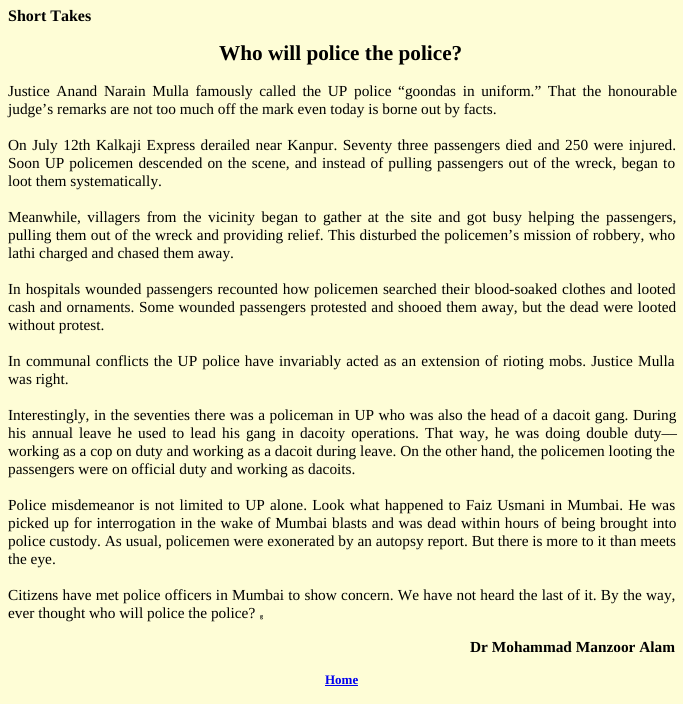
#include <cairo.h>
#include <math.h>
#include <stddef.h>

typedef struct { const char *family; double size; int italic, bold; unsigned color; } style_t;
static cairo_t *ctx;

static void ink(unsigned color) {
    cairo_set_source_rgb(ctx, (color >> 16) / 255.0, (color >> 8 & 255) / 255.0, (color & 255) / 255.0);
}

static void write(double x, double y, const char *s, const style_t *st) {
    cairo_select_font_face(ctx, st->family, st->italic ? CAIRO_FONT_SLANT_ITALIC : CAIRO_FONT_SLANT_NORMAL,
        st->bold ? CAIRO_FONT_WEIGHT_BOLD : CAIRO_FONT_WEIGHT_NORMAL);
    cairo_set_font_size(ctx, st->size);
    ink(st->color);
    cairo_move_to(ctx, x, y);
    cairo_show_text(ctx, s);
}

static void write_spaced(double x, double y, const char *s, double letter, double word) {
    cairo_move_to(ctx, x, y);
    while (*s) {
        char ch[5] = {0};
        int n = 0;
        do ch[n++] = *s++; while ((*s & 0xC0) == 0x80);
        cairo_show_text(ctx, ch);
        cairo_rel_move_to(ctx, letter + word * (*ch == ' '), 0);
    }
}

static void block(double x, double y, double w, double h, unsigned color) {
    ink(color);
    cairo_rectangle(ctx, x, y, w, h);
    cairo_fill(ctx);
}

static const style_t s1 = {"Liberation Serif", 16, 0, 1, 0x000000};
static const style_t s2 = {"Liberation Serif", 21.25, 0, 1, 0x000000};
static const style_t s3 = {"Liberation Serif", 15.35, 0, 0, 0x000000};
static const style_t s4 = {"Liberation Serif", 6, 0, 1, 0x000000};
static const style_t s5 = {"Liberation Serif", 15.35, 0, 1, 0x000000};
static const style_t s6 = {"Liberation Serif", 13, 0, 1, 0x0000ee};

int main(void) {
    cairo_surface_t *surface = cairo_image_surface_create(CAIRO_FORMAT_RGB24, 683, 704);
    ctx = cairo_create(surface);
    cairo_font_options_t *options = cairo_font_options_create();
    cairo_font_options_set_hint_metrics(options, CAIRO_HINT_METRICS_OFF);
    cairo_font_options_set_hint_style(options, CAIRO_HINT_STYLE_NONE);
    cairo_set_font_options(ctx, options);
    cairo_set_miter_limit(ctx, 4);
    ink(0xfefdd6);
    cairo_paint(ctx);
    write(8, 21, "Short Takes", &s1);
    write(219, 60, "Who will police the police?", &s2);
    cairo_select_font_face(ctx, "Liberation Serif", CAIRO_FONT_SLANT_NORMAL, CAIRO_FONT_WEIGHT_NORMAL);
    cairo_set_font_size(ctx, 15.35);
    write_spaced(8, 96, "Justice Anand Narain Mulla famously called the UP police “goondas in uniform.” That the honourable", 0, 2.75);
    write(8, 114, "judge’s remarks are not too much off the mark even today is borne out by facts.", &s3);
    write_spaced(8, 150, "On July 12th Kalkaji Express derailed near Kanpur. Seventy three passengers died and 250 were injured.", 0, 1.6);
    write_spaced(8, 168, "Soon UP policemen descended on the scene, and instead of pulling passengers out of the wreck, began to", 0, 1.25);
    write(8, 186, "loot them systematically.", &s3);
    write_spaced(8, 222, "Meanwhile, villagers from the vicinity began to gather at the site and got busy helping the passengers,", 0, 2.6);
    write_spaced(8, 240, "pulling them out of the wreck and providing relief. This disturbed the policemen’s mission of robbery, who", 0, 0.5);
    write(8, 258, "lathi charged and chased them away.", &s3);
    write_spaced(8, 294, "In hospitals wounded passengers recounted how policemen searched their blood-soaked clothes and looted", 0, 1);
    write_spaced(8, 312, "cash and ornaments. Some wounded passengers protested and shooed them away, but the dead were looted", 0, 0.75);
    write(8, 330, "without protest.", &s3);
    write_spaced(8, 366, "In communal conflicts the UP police have invariably acted as an extension of rioting mobs. Justice Mulla", 0, 1.25);
    write(8, 384, "was right.", &s3);
    write_spaced(8, 420, "Interestingly, in the seventies there was a policeman in UP who was also the head of a dacoit gang. During", 0, 0.7);
    write_spaced(8, 438, "his annual leave he used to lead his gang in dacoity operations. That way, he was doing double duty––", 0, 2.25);
    write(8, 456, "working as a cop on duty and working as a dacoit during leave. On the other hand, the policemen looting the", &s3);
    write(8, 474, "passengers were on official duty and working as dacoits.", &s3);
    write_spaced(8, 510, "Police misdemeanor is not limited to UP alone. Look what happened to Faiz Usmani in Mumbai. He was", 0, 1.3);
    write_spaced(8, 528, "picked up for interrogation in the wake of Mumbai blasts and was dead within hours of being brought into", 0, 0.9);
    write(8, 546, "police custody. As usual, policemen were exonerated by an autopsy report. But there is more to it than meets", &s3);
    write(8, 564, "the eye.", &s3);
    write_spaced(8, 600, "Citizens have met police officers in Mumbai to show concern. We have not heard the last of it. By the way,", 0, 0.4);
    write(8, 618, "ever thought who will police the police?", &s3);
    write(260, 618, "g", &s4);
    write(470, 652, "Dr Mohammad Manzoor Alam", &s5);
    write(325, 684, "Home", &s6);
    block(325, 685, 33, 1, 0x0000ee);
    cairo_surface_write_to_png(surface, "screenshot.png");
    cairo_font_options_destroy(options);
    cairo_destroy(ctx);
    cairo_surface_destroy(surface);
    return 0;
}
